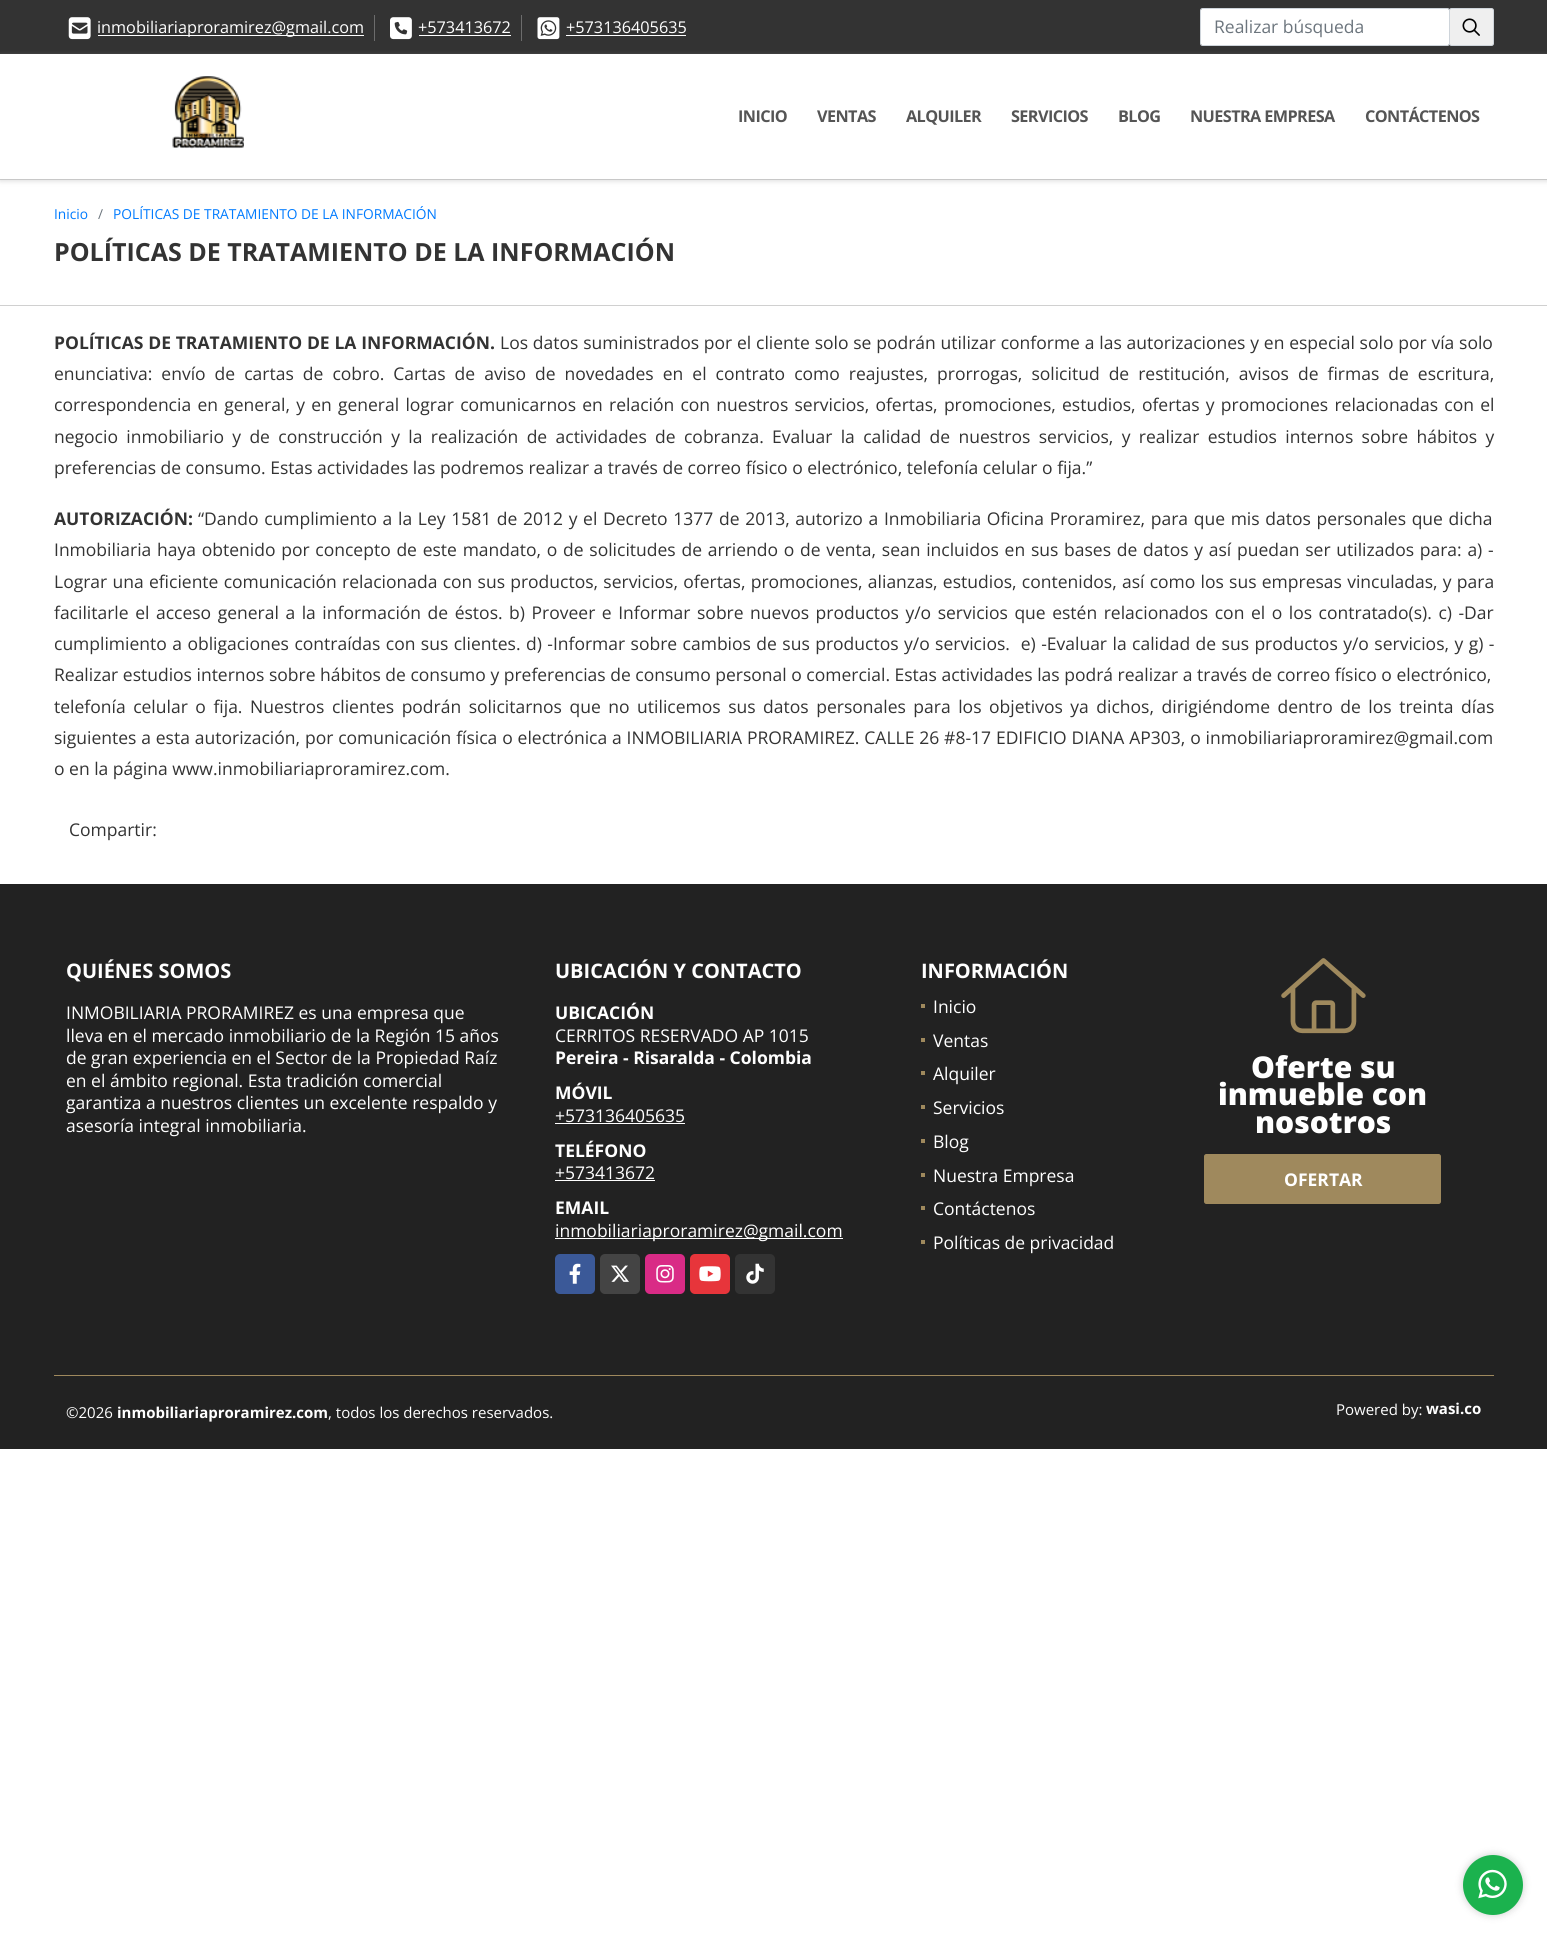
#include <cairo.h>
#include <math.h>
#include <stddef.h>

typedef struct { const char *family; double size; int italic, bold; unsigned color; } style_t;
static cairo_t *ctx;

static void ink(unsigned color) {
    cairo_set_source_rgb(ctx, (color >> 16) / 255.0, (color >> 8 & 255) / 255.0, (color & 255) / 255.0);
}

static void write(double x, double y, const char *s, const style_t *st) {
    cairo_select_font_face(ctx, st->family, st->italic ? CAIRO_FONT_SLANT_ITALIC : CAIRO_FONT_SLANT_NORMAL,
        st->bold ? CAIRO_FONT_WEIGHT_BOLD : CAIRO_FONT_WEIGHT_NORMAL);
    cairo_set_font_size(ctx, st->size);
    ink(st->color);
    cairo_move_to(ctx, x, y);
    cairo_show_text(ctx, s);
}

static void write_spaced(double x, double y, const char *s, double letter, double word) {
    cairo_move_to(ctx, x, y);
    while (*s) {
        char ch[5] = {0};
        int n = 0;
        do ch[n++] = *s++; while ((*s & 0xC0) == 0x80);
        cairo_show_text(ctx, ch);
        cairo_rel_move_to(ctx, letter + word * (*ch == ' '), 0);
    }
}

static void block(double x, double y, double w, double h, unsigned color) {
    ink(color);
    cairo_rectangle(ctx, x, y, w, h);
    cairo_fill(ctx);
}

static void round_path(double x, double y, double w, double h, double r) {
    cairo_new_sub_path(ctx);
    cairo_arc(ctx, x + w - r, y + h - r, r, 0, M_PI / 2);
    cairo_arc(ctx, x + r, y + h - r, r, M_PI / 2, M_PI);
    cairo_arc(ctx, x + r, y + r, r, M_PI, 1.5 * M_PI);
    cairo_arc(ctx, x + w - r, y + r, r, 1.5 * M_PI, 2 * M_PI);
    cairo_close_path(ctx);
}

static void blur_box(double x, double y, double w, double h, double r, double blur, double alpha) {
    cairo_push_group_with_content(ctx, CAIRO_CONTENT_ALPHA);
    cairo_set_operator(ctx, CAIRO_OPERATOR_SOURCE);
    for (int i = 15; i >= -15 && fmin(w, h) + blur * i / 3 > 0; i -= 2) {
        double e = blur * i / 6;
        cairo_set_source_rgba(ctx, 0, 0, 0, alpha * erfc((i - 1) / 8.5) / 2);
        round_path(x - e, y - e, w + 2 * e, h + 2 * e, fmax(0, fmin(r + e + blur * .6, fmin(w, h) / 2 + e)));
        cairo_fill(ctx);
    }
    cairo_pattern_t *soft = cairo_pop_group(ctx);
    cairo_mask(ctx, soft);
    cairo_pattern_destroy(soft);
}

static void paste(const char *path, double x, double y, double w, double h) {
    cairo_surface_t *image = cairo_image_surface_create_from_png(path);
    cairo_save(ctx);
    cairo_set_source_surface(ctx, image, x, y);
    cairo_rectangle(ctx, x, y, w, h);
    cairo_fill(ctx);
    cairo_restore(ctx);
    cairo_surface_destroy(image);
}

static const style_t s1 = {"Open Sans", 16.25, 0, 0, 0xffffff};
static const style_t s2 = {"Open Sans", 17.5, 0, 0, 0x6c757d};
static const style_t s3 = {"Open Sans", 13.75, 0, 0, 0x007bff};
static const style_t s4 = {"Open Sans", 13.75, 0, 0, 0x6c757d};
static const style_t s5 = {"Open Sans", 25, 0, 1, 0x333333};
static const style_t s6 = {"Open Sans", 17.5, 0, 0, 0x333333};
static const style_t s7 = {"Open Sans", 17.5, 0, 1, 0x333333};
static const style_t s8 = {"Open Sans", 20, 0, 1, 0xffffff};
static const style_t s9 = {"Open Sans", 17.5, 0, 0, 0xffffff};
static const style_t s10 = {"Open Sans", 17.5, 0, 1, 0xffffff};
static const style_t s11 = {"Open Sans ExtraBold", 30, 0, 0, 0xffffff};
static const style_t s12 = {"Open Sans", 15, 0, 0, 0xffffff};
static const style_t s13 = {"Open Sans", 15, 0, 1, 0xffffff};

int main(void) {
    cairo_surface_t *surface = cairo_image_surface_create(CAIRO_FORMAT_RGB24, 1547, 1939);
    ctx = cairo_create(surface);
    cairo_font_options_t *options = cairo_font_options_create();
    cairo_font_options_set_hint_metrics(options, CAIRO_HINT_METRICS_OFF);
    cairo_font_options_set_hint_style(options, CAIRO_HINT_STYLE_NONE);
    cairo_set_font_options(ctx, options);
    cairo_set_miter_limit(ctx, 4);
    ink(0xffffff);
    cairo_paint(ctx);
    block(0, 0, 1547, 54, 0x333333);
    block(374, 15, 1, 26, 0x6c6c6c);
    paste("pic1.png", 68, 17, 23, 23);
    block(98, 35, 266, 1, 0xffffff);
    write(97, 33, "inmobiliariaproramirez@gmail.com", &s1);
    block(521, 15, 1, 26, 0x6c6c6c);
    paste("pic2.png", 390, 17, 22, 23);
    write(418, 33, "+573413672", &s1);
    block(419, 35, 92, 1, 0xffffff);
    paste("pic3.png", 537, 17, 23, 23);
    write(566, 33, "+573136405635", &s1);
    block(566, 35, 120, 1, 0xffffff);
    round_path(1201, 9, 248, 36, 1);
    cairo_fill(ctx);
    round_path(1200.5, 8.5, 249, 37, 2);
    ink(0xced4da);
    cairo_set_line_width(ctx, 1);
    cairo_stroke(ctx);
    write(1214, 33, "Realizar búsqueda", &s2);
    ink(0xefefef);
    round_path(1449.5, 8.5, 44, 37, 2);
    cairo_fill_preserve(ctx);
    ink(0xced4da);
    cairo_stroke(ctx);
    paste("pic4.png", 1462, 18, 18, 18);
    block(0, 179, 1547, 1, 0xd0d0d0);
    ink(0xbababa);
    blur_box(0, 56, 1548, 125, 0, 2.5, 0.5);
    block(0, 54, 1547, 125, 0xffffff);
    paste("pic5.png", 172, 76, 72, 73);
    cairo_select_font_face(ctx, "Open Sans", CAIRO_FONT_SLANT_NORMAL, CAIRO_FONT_WEIGHT_BOLD);
    cairo_set_font_size(ctx, 16.25);
    ink(0x555555);
    write_spaced(738, 122, "INICIO", -0.6, 0);
    write_spaced(817, 122, "VENTAS", -0.6, 0);
    write_spaced(906, 122, "ALQUILER", -0.6, 0);
    write_spaced(1011, 122, "SERVICIOS", -0.6, 0);
    write_spaced(1118, 122, "BLOG", -0.6, 0);
    write_spaced(1190, 122, "NUESTRA EMPRESA", -0.6, 0);
    write_spaced(1365, 122, "CONTÁCTENOS", -0.6, 0);
    block(0, 305, 1547, 1, 0xd0d0d0);
    write(54, 219, "Inicio", &s3);
    write(98, 219, "/", &s4);
    write(113, 219, "POLÍTICAS DE TRATAMIENTO DE LA INFORMACIÓN", &s3);
    write(54, 261, "POLÍTICAS DE TRATAMIENTO DE LA INFORMACIÓN", &s5);
    cairo_set_font_size(ctx, 17.5);
    write_spaced(54, 349, "POLÍTICAS DE TRATAMIENTO DE LA INFORMACIÓN.", 0, 0.25);
    cairo_select_font_face(ctx, "Open Sans", CAIRO_FONT_SLANT_NORMAL, CAIRO_FONT_WEIGHT_NORMAL);
    write_spaced(500, 349, "Los datos suministrados por el cliente solo se podrán utilizar conforme a las autorizaciones y en especial solo por vía solo", 0, 0.25);
    write_spaced(54, 380, "enunciativa: envío de cartas de cobro. Cartas de aviso de novedades en el contrato como reajustes, prorrogas, solicitud de restitución, avisos de firmas de escritura,", 0, 4.5);
    write_spaced(54, 411, "correspondencia en general, y en general lograr comunicarnos en relación con nuestros servicios, ofertas, promociones, estudios, ofertas y promociones relacionadas con el", 0, 1.7);
    write_spaced(54, 443, "negocio inmobiliario y de construcción y la realización de actividades de cobranza. Evaluar la calidad de nuestros servicios, y realizar estudios internos sobre hábitos y", 0, 3.8);
    write(54, 474, "preferencias de consumo. Estas actividades las podremos realizar a través de correo físico o electrónico, telefonía celular o fija.”", &s6);
    write(54, 525, "AUTORIZACIÓN:", &s7);
    cairo_select_font_face(ctx, "Open Sans", CAIRO_FONT_SLANT_NORMAL, CAIRO_FONT_WEIGHT_NORMAL);
    write_spaced(198, 525, "“Dando cumplimiento a la Ley 1581 de 2012 y el Decreto 1377 de 2013, autorizo a Inmobiliaria Oficina Proramirez, para que mis datos personales que dicha", 0, 1.1);
    write_spaced(54, 556, "Inmobiliaria haya obtenido por concepto de este mandato, o de solicitudes de arriendo o de venta, sean incluidos en sus bases de datos y así puedan ser utilizados para: a) -", 0, 1.2);
    write_spaced(54, 588, "Lograr una eficiente comunicación relacionada con sus productos, servicios, ofertas, promociones, alianzas, estudios, contenidos, así como los sus empresas vinculadas, y para", 0, 0.7);
    write_spaced(54, 619, "facilitarle el acceso general a la información de éstos. b) Proveer e Informar sobre nuevos productos y/o servicios que estén relacionados con el o los contratado(s). c) -Dar", 0, 2);
    write_spaced(54, 650, "cumplimiento a obligaciones contraídas con sus clientes. d) -Informar sobre cambios de sus productos y/o servicios.  e) -Evaluar la calidad de sus productos y/o servicios, y g) -", 0, 0.9);
    write(54, 681, "Realizar estudios internos sobre hábitos de consumo y preferencias de consumo personal o comercial. Estas actividades las podrá realizar a través de correo físico o electrónico,", &s6);
    write_spaced(54, 713, "telefonía celular o fija. Nuestros clientes podrán solicitarnos que no utilicemos sus datos personales para los objetivos ya dichos, dirigiéndome dentro de los treinta días", 0, 3);
    write_spaced(54, 744, "siguientes a esta autorización, por comunicación física o electrónica a INMOBILIARIA PRORAMIREZ. CALLE 26 #8-17 EDIFICIO DIANA AP303, o inmobiliariaproramirez@gmail.com", 0, 0.3);
    write(54, 775, "o en la página www.inmobiliariaproramirez.com.", &s6);
    write(69, 836, "Compartir:", &s6);
    block(0, 884, 1547, 565, 0x222222);
    write(66, 978, "QUIÉNES SOMOS", &s8);
    write(66, 1019, "INMOBILIARIA PRORAMIREZ es una empresa que", &s9);
    write(66, 1042, "lleva en el mercado inmobiliario de la Región 15 años", &s9);
    write(66, 1064, "de gran experiencia en el Sector de la Propiedad Raíz", &s9);
    write(66, 1087, "en el ámbito regional. Esta tradición comercial", &s9);
    write(66, 1109, "garantiza a nuestros clientes un excelente respaldo y", &s9);
    write(66, 1132, "asesoría integral inmobiliaria.", &s9);
    write(555, 978, "UBICACIÓN Y CONTACTO", &s8);
    write(555, 1019, "UBICACIÓN", &s10);
    write(555, 1042, "CERRITOS RESERVADO AP 1015", &s9);
    write(555, 1064, "Pereira - Risaralda - Colombia", &s10);
    write(555, 1099, "MÓVIL", &s10);
    write(555, 1122, "+573136405635", &s9);
    block(555, 1123, 130, 1, 0xffffff);
    write(555, 1157, "TELÉFONO", &s10);
    write(555, 1179, "+573413672", &s9);
    block(555, 1180, 100, 1, 0xffffff);
    write(555, 1214, "EMAIL", &s10);
    block(555, 1238, 288, 1, 0xffffff);
    write(555, 1237, "inmobiliariaproramirez@gmail.com", &s9);
    ink(0x3b5998);
    round_path(555, 1254, 40, 40, 5);
    cairo_fill(ctx);
    paste("pic6.png", 569, 1263, 12, 21);
    ink(0x444444);
    round_path(600, 1254, 40, 40, 5);
    cairo_fill(ctx);
    paste("pic7.png", 611, 1265, 18, 17);
    ink(0xd92b86);
    round_path(645, 1254, 40, 40, 5);
    cairo_fill(ctx);
    paste("pic8.png", 656, 1265, 18, 18);
    ink(0xe7353b);
    round_path(690, 1254, 40, 40, 5);
    cairo_fill(ctx);
    paste("pic9.png", 699, 1266, 22, 16);
    ink(0x333333);
    round_path(735, 1254, 40, 40, 5);
    cairo_fill(ctx);
    paste("pic10.png", 746, 1263, 18, 21);
    write(921, 978, "INFORMACIÓN", &s8);
    block(921, 1004, 4, 4, 0x9f895d);
    write(933, 1013, "Inicio", &s9);
    block(921, 1038, 4, 4, 0x9f895d);
    write(933, 1047, "Ventas", &s9);
    block(921, 1071, 4, 4, 0x9f895d);
    write(933, 1080, "Alquiler", &s9);
    block(921, 1105, 4, 4, 0x9f895d);
    write(933, 1114, "Servicios", &s9);
    block(921, 1139, 4, 4, 0x9f895d);
    write(933, 1148, "Blog", &s9);
    block(921, 1173, 4, 4, 0x9f895d);
    write(933, 1182, "Nuestra Empresa", &s9);
    block(921, 1206, 4, 4, 0x9f895d);
    write(933, 1215, "Contáctenos", &s9);
    block(921, 1240, 4, 4, 0x9f895d);
    write(933, 1249, "Políticas de privacidad", &s9);
    paste("pic11.png", 1281, 958, 85, 76);
    write(1251, 1078, "Oferte su", &s11);
    write(1218, 1105, "inmueble con", &s11);
    write(1255, 1133, "nosotros", &s11);
    ink(0x9f895d);
    round_path(1204.5, 1154.5, 236, 49, 2);
    cairo_fill_preserve(ctx);
    cairo_stroke(ctx);
    write(1284, 1186, "OFERTAR", &s10);
    block(54, 1375, 1440, 1, 0x9f895d);
    write(66, 1418, "©2026", &s12);
    write(117, 1418, "inmobiliariaproramirez.com", &s13);
    write(328, 1418, ", todos los derechos reservados.", &s12);
    write(1336, 1415, "Powered by:", &s12);
    write(1426, 1414, "wasi.co", &s13);
    ink(0x000000);
    blur_box(1463, 1855, 60, 60, 30, 4, 0.2);
    ink(0x1bb24e);
    cairo_arc(ctx, 1493, 1885, 30, 0, 2 * M_PI);
    cairo_fill(ctx);
    paste("pic12.png", 1478, 1869, 29, 30);
    cairo_surface_write_to_png(surface, "screenshot.png");
    cairo_font_options_destroy(options);
    cairo_destroy(ctx);
    cairo_surface_destroy(surface);
    return 0;
}
